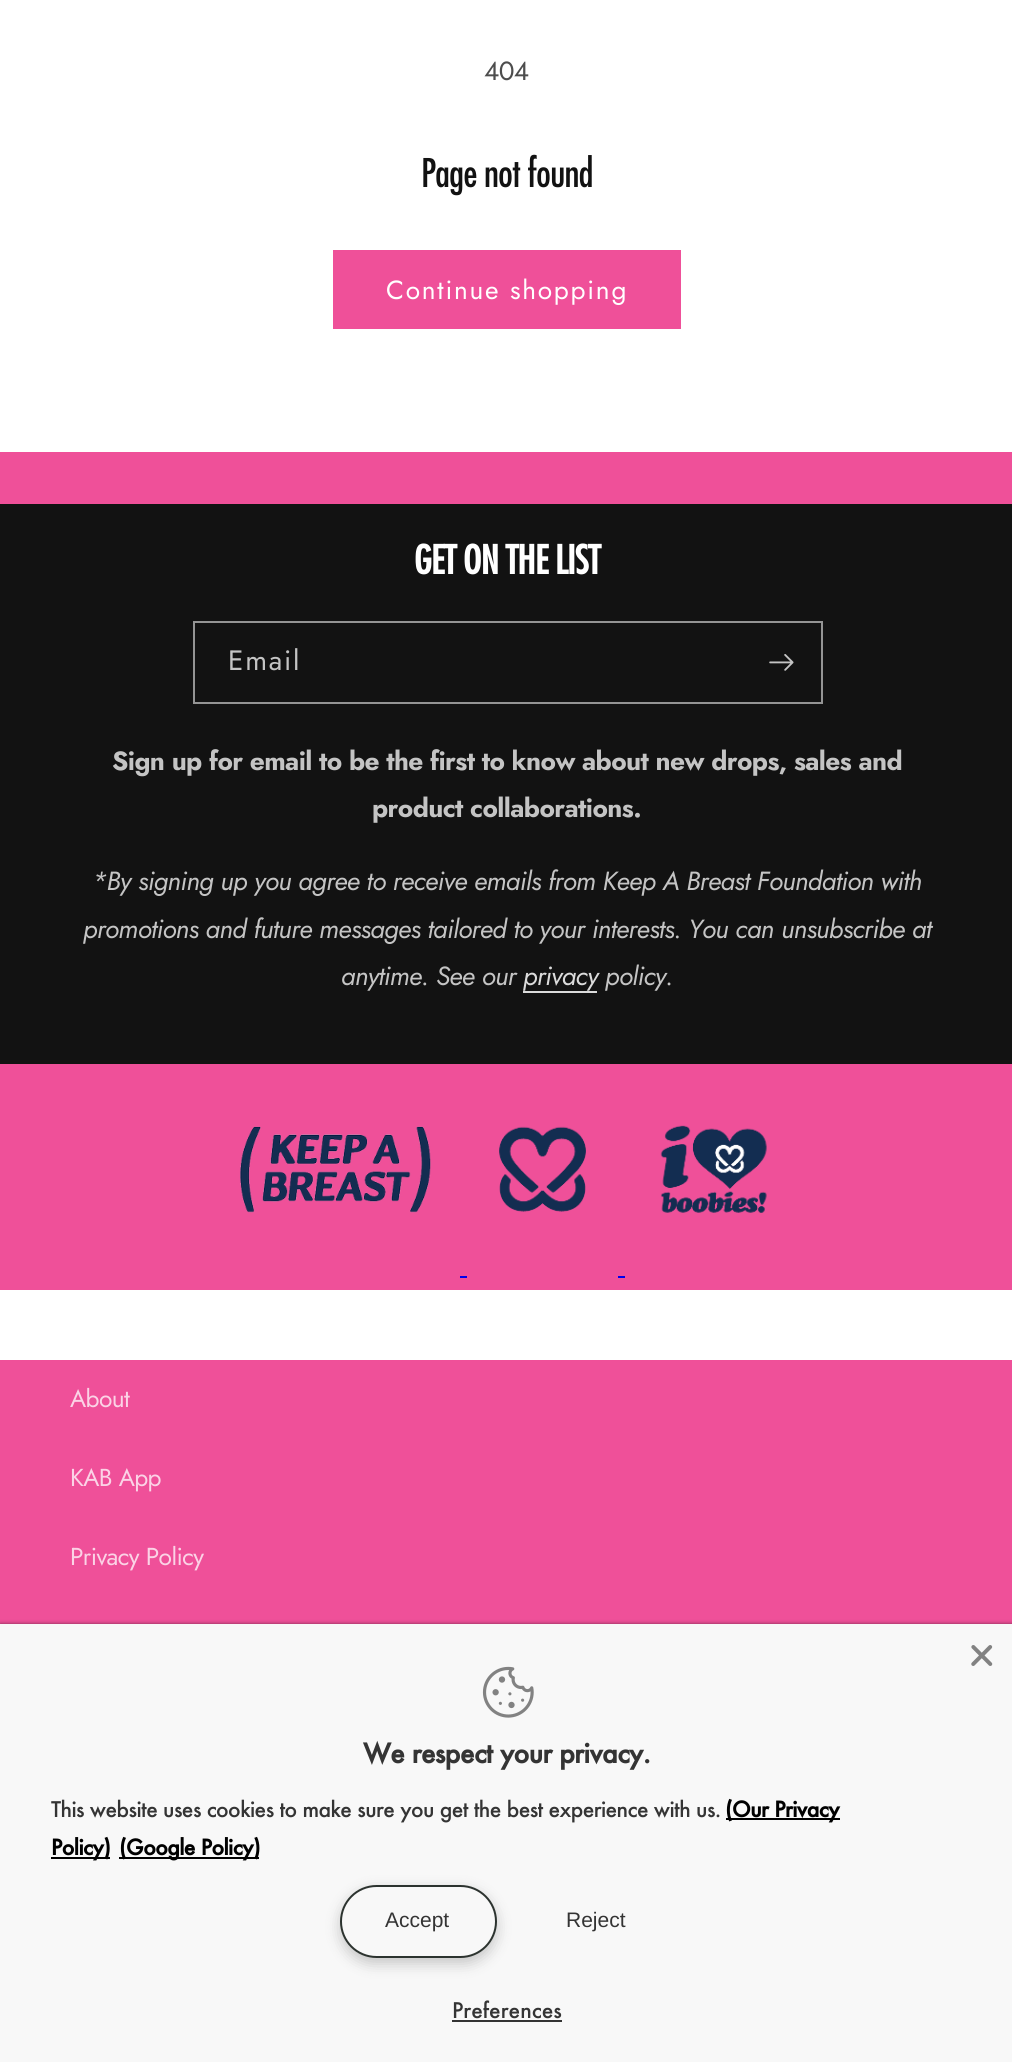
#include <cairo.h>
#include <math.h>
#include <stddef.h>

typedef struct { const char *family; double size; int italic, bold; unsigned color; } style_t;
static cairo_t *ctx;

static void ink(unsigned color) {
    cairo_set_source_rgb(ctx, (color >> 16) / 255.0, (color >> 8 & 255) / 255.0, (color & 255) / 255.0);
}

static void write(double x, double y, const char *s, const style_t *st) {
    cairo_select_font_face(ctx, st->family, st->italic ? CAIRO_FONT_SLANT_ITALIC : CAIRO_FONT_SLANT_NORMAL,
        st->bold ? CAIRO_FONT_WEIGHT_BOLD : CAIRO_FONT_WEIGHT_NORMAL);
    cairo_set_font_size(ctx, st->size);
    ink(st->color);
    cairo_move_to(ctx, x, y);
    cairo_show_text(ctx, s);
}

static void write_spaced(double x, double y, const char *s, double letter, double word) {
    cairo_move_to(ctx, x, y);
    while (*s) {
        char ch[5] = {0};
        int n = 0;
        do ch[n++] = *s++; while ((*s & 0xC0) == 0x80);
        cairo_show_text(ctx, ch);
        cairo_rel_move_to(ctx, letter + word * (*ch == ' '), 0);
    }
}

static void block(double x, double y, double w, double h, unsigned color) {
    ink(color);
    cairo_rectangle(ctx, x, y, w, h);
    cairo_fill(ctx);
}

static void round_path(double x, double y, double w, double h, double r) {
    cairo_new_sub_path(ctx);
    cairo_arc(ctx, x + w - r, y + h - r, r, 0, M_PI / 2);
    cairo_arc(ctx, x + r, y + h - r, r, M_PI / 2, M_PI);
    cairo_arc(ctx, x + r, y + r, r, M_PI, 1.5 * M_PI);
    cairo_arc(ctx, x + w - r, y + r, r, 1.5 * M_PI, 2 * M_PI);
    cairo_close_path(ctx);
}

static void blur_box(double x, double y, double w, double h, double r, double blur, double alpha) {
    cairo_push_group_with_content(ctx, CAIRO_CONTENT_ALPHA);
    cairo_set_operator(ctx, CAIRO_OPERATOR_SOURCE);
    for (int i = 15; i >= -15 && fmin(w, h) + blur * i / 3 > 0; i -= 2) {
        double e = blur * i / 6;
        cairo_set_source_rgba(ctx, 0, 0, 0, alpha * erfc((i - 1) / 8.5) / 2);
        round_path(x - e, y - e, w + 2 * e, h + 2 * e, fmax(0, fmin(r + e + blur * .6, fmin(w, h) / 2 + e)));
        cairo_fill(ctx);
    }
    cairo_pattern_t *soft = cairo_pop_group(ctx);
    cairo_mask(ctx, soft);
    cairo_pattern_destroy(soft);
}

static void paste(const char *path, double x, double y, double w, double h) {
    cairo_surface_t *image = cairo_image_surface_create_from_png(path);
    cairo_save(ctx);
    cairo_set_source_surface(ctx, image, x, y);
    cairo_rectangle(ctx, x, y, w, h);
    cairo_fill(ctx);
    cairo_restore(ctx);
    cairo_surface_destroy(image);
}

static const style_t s1 = {"Liberation Sans", 21, 0, 0, 0x343434};
static const style_t s2 = {"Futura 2 Medium", 21, 0, 0, 0x343434};

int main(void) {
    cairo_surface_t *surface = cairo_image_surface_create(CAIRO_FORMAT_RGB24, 1012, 2062);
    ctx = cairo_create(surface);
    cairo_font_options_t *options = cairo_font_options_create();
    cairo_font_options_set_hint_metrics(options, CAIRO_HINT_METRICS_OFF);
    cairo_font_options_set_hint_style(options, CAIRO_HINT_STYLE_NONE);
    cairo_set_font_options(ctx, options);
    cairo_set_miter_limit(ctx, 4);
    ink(0xffffff);
    cairo_paint(ctx);
    cairo_select_font_face(ctx, "Jost", CAIRO_FONT_SLANT_NORMAL, CAIRO_FONT_WEIGHT_NORMAL);
    cairo_set_font_size(ctx, 26.25);
    ink(0x4d4d4d);
    write_spaced(484, 80, "404", -0.6, 0);
    cairo_select_font_face(ctx, "Futura Medium", CAIRO_FONT_SLANT_NORMAL, CAIRO_FONT_WEIGHT_NORMAL);
    cairo_set_font_size(ctx, 38.5);
    ink(0x121212);
    write_spaced(421, 187, "Page not found", -0.6, 0);
    block(333, 250, 348, 79, 0xef5099);
    cairo_select_font_face(ctx, "Jost", CAIRO_FONT_SLANT_NORMAL, CAIRO_FONT_WEIGHT_NORMAL);
    cairo_set_font_size(ctx, 26.25);
    ink(0xffffff);
    write_spaced(386, 299, "Continue shopping", 1.75, 0);
    block(0, 452, 1012, 52, 0xef5099);
    block(0, 504, 1012, 560, 0x121212);
    cairo_select_font_face(ctx, "Futura", CAIRO_FONT_SLANT_NORMAL, CAIRO_FONT_WEIGHT_BOLD);
    cairo_set_font_size(ctx, 38.5);
    ink(0xffffff);
    write_spaced(414, 574, "GET ON THE LIST", -0.6, 0);
    cairo_rectangle(ctx, 194, 622, 628, 81);
    ink(0x949494);
    cairo_stroke(ctx);
    cairo_select_font_face(ctx, "Jost", CAIRO_FONT_SLANT_NORMAL, CAIRO_FONT_WEIGHT_NORMAL);
    cairo_set_font_size(ctx, 28);
    ink(0xc4c4c4);
    write_spaced(228, 670, "Email", 1.75, 0);
    paste("pic1.png", 769, 654, 25, 17);
    cairo_select_font_face(ctx, "Jost", CAIRO_FONT_SLANT_NORMAL, CAIRO_FONT_WEIGHT_BOLD);
    cairo_set_font_size(ctx, 26.25);
    write_spaced(112, 770, "Sign up for email to be the first to know about new drops, sales and", -0.6, 0);
    write_spaced(372, 817, "product collaborations.", -0.6, 0);
    cairo_select_font_face(ctx, "Jost", CAIRO_FONT_SLANT_ITALIC, CAIRO_FONT_WEIGHT_NORMAL);
    write_spaced(92, 890, "*By signing up you agree to receive emails from Keep A Breast Foundation with", -0.6, 0);
    write_spaced(83, 938, "promotions and future messages tailored to your interests. You can unsubscribe at", -0.6, 0);
    write_spaced(341, 985, "anytime. See our", -0.6, 0);
    ink(0xdbdbdb);
    write_spaced(523, 985, "privacy", -0.6, 0);
    block(523, 991, 74, 2, 0xdbdbdb);
    ink(0xc4c4c4);
    write_spaced(605, 985, "policy.", -0.6, 0);
    block(0, 1064, 1012, 226, 0xef5099);
    paste("pic2.png", 240, 1126, 191, 87);
    paste("pic3.png", 499, 1126, 87, 86);
    paste("pic4.png", 660, 1125, 107, 88);
    block(460, 1276, 7, 2, 0x0000ee);
    block(618, 1276, 7, 2, 0x0000ee);
    block(0, 1360, 1012, 264, 0xef5099);
    cairo_select_font_face(ctx, "Jost", CAIRO_FONT_SLANT_NORMAL, CAIRO_FONT_WEIGHT_NORMAL);
    cairo_set_font_size(ctx, 24.5);
    ink(0xfbd3e6);
    write_spaced(70, 1407, "About", -0.6, 0);
    write_spaced(70, 1486, "KAB App", -0.6, 0);
    write_spaced(70, 1565, "Privacy Policy", -0.6, 0);
    ink(0x000000);
    blur_box(0, 1624, 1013, 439, 0, 2, 0.5);
    block(0, 1624, 1012, 438, 0xf8f8f8);
    paste("pic5.png", 971, 1645, 22, 21);
    paste("pic6.png", 482, 1666, 52, 52);
    cairo_select_font_face(ctx, "Futura 2", CAIRO_FONT_SLANT_NORMAL, CAIRO_FONT_WEIGHT_BOLD);
    cairo_set_font_size(ctx, 26.25);
    ink(0x343434);
    write_spaced(363, 1763, "We respect your privacy.", -0.6, 0);
    cairo_select_font_face(ctx, "Futura 2 Medium", CAIRO_FONT_SLANT_NORMAL, CAIRO_FONT_WEIGHT_NORMAL);
    cairo_set_font_size(ctx, 21);
    write_spaced(51, 1817, "This website uses cookies to make sure you get the best experience with us.", -0.6, 0);
    block(726, 1818, 114, 2, 0x000000);
    cairo_select_font_face(ctx, "Futura 2", CAIRO_FONT_SLANT_NORMAL, CAIRO_FONT_WEIGHT_BOLD);
    write_spaced(725, 1817, "(Our Privacy", -0.6, 0);
    block(51, 1857, 59, 2, 0x000000);
    write_spaced(51, 1855, "Policy)", -0.6, 0);
    block(119, 1857, 140, 2, 0x000000);
    write_spaced(119, 1855, "(Google Policy)", -0.6, 0);
    ink(0x000000);
    blur_box(340, 1890, 157, 74, 37, 7, 0.2);
    ink(0xf8f8f8);
    round_path(341, 1886, 155, 71, 35.5);
    cairo_fill_preserve(ctx);
    ink(0x2c332f);
    cairo_stroke(ctx);
    write(385, 1927, "Accept", &s1);
    write(566, 1927, "Reject", &s1);
    write(452, 2018, "Preferences", &s2);
    block(452, 2020, 110, 2, 0x343434);
    cairo_surface_write_to_png(surface, "screenshot.png");
    cairo_font_options_destroy(options);
    cairo_destroy(ctx);
    cairo_surface_destroy(surface);
    return 0;
}
